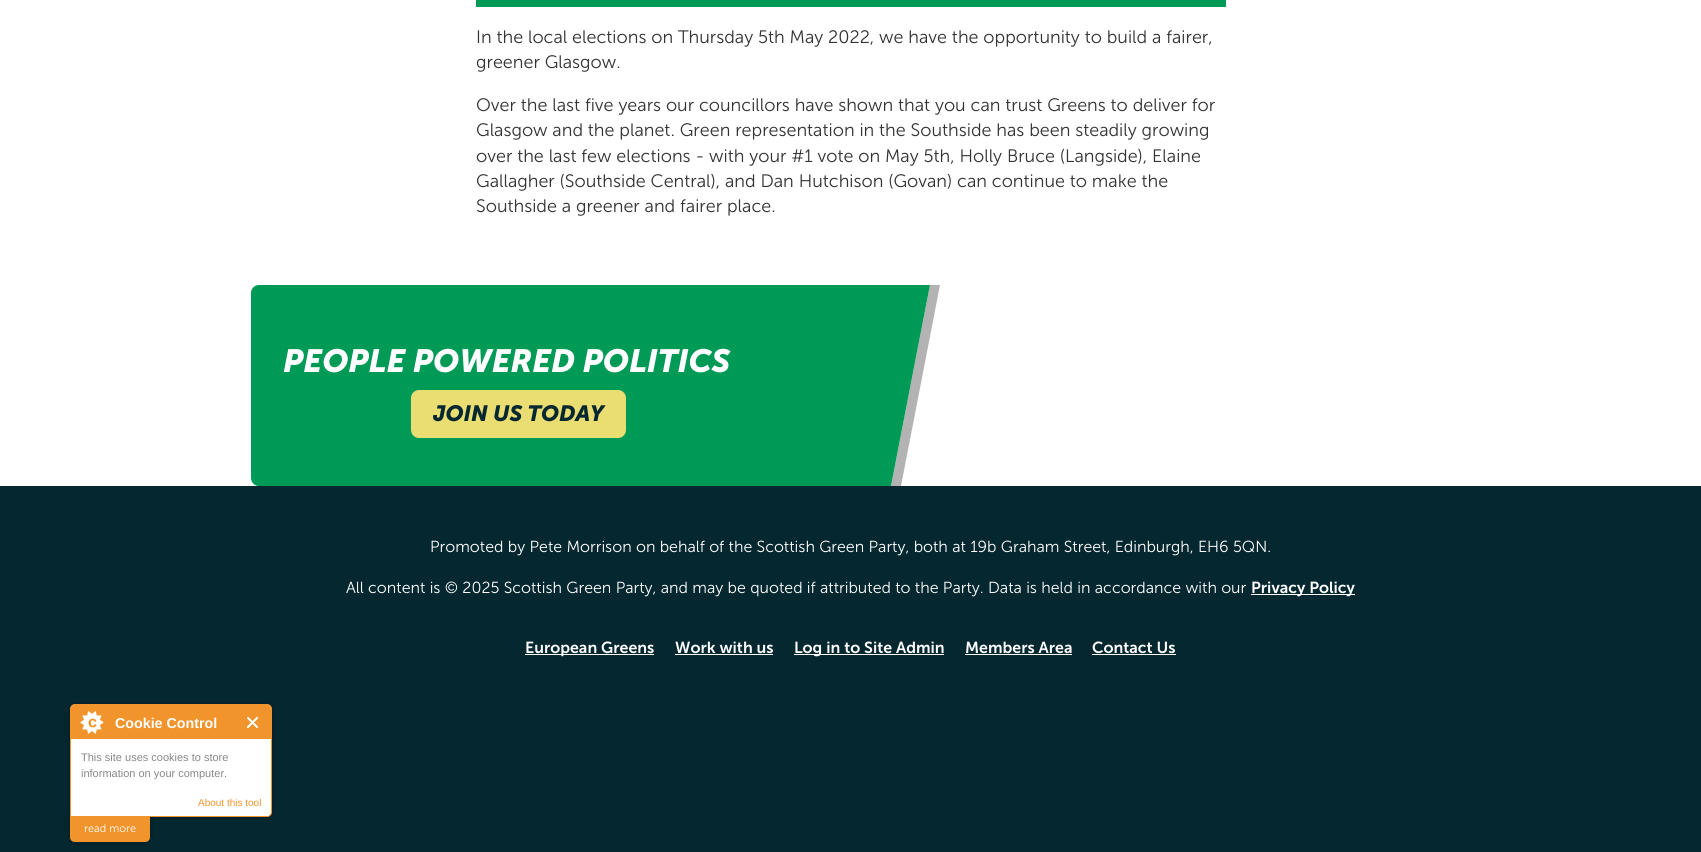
#include <cairo.h>
#include <math.h>
#include <stddef.h>

typedef struct { const char *family; double size; int italic, bold; unsigned color; } style_t;
static cairo_t *ctx;

static void ink(unsigned color) {
    cairo_set_source_rgb(ctx, (color >> 16) / 255.0, (color >> 8 & 255) / 255.0, (color & 255) / 255.0);
}

static void write(double x, double y, const char *s, const style_t *st) {
    cairo_select_font_face(ctx, st->family, st->italic ? CAIRO_FONT_SLANT_ITALIC : CAIRO_FONT_SLANT_NORMAL,
        st->bold ? CAIRO_FONT_WEIGHT_BOLD : CAIRO_FONT_WEIGHT_NORMAL);
    cairo_set_font_size(ctx, st->size);
    ink(st->color);
    cairo_move_to(ctx, x, y);
    cairo_show_text(ctx, s);
}

static void block(double x, double y, double w, double h, unsigned color) {
    ink(color);
    cairo_rectangle(ctx, x, y, w, h);
    cairo_fill(ctx);
}

static void round_path(double x, double y, double w, double h, double r) {
    cairo_new_sub_path(ctx);
    cairo_arc(ctx, x + w - r, y + h - r, r, 0, M_PI / 2);
    cairo_arc(ctx, x + r, y + h - r, r, M_PI / 2, M_PI);
    cairo_arc(ctx, x + r, y + r, r, M_PI, 1.5 * M_PI);
    cairo_arc(ctx, x + w - r, y + r, r, 1.5 * M_PI, 2 * M_PI);
    cairo_close_path(ctx);
}

static void blur_box(double x, double y, double w, double h, double r, double blur, double alpha) {
    cairo_push_group_with_content(ctx, CAIRO_CONTENT_ALPHA);
    cairo_set_operator(ctx, CAIRO_OPERATOR_SOURCE);
    for (int i = 15; i >= -15 && fmin(w, h) + blur * i / 3 > 0; i -= 2) {
        double e = blur * i / 6;
        cairo_set_source_rgba(ctx, 0, 0, 0, alpha * erfc((i - 1) / 8.5) / 2);
        round_path(x - e, y - e, w + 2 * e, h + 2 * e, fmax(0, fmin(r + e + blur * .6, fmin(w, h) / 2 + e)));
        cairo_fill(ctx);
    }
    cairo_pattern_t *soft = cairo_pop_group(ctx);
    cairo_mask(ctx, soft);
    cairo_pattern_destroy(soft);
}

static void paste(const char *path, double x, double y, double w, double h) {
    cairo_surface_t *image = cairo_image_surface_create_from_png(path);
    cairo_save(ctx);
    cairo_set_source_surface(ctx, image, x, y);
    cairo_rectangle(ctx, x, y, w, h);
    cairo_fill(ctx);
    cairo_restore(ctx);
    cairo_surface_destroy(image);
}

static const style_t s1 = {"Museo Sans Light", 18, 0, 0, 0x333333};
static const style_t s2 = {"Museo Sans", 32, 1, 1, 0xffffff};
static const style_t s3 = {"Museo Sans", 22, 1, 1, 0x052730};
static const style_t s4 = {"Museo Sans Light", 16, 0, 0, 0xffffff};
static const style_t s5 = {"Museo Sans SemiBold", 16, 0, 0, 0xffffff};
static const style_t s6 = {"Liberation Sans", 14.25, 0, 1, 0xffffff};
static const style_t s7 = {"Liberation Sans", 11, 0, 0, 0x888888};
static const style_t s8 = {"Liberation Sans", 10, 0, 0, 0xf0942b};
static const style_t s9 = {"Museo Sans Light", 11, 0, 0, 0xffffff};

int main(void) {
    cairo_surface_t *surface = cairo_image_surface_create(CAIRO_FORMAT_RGB24, 1701, 852);
    ctx = cairo_create(surface);
    cairo_font_options_t *options = cairo_font_options_create();
    cairo_font_options_set_hint_metrics(options, CAIRO_HINT_METRICS_OFF);
    cairo_font_options_set_hint_style(options, CAIRO_HINT_STYLE_NONE);
    cairo_set_font_options(ctx, options);
    cairo_set_miter_limit(ctx, 4);
    ink(0xffffff);
    cairo_paint(ctx);
    block(476, 0, 750, 7, 0x009a57);
    write(476, 43, "In the local elections on Thursday 5th May 2022, we have the opportunity to build a fairer,", &s1);
    write(476, 68, "greener Glasgow.", &s1);
    write(476, 111, "Over the last five years our councillors have shown that you can trust Greens to deliver for", &s1);
    write(476, 136, "Glasgow and the planet. Green representation in the Southside has been steadily growing", &s1);
    write(476, 162, "over the last few elections - with your #1 vote on May 5th, Holly Bruce (Langside), Elaine", &s1);
    write(476, 187, "Gallagher (Southside Central), and Dan Hutchison (Govan) can continue to make the", &s1);
    write(476, 212, "Southside a greener and fairer place.", &s1);
    ink(0x009a57);
    cairo_new_path(ctx);
    cairo_move_to(ctx, 259, 285);
    cairo_line_to(ctx, 847, 285);
    cairo_line_to(ctx, 847, 486);
    cairo_line_to(ctx, 259, 486);
    cairo_curve_to(ctx, 254.5, 486, 251, 482.5, 251, 478);
    cairo_line_to(ctx, 251, 293);
    cairo_curve_to(ctx, 251, 288.5, 254.5, 285, 259, 285);
    cairo_close_path(ctx);
    cairo_fill(ctx);
    write(283, 372, "PEOPLE POWERED POLITICS", &s2);
    ink(0xb3b3b3);
    cairo_new_path(ctx);
    cairo_move_to(ctx, 820, 285);
    cairo_line_to(ctx, 940, 285);
    cairo_line_to(ctx, 901, 486);
    cairo_line_to(ctx, 781, 486);
    cairo_line_to(ctx, 891, 486);
    cairo_line_to(ctx, 930, 285);
    cairo_close_path(ctx);
    cairo_fill(ctx);
    ink(0x009a57);
    cairo_new_path(ctx);
    cairo_move_to(ctx, 810, 285);
    cairo_line_to(ctx, 930, 285);
    cairo_line_to(ctx, 891, 486);
    cairo_line_to(ctx, 771, 486);
    cairo_close_path(ctx);
    cairo_fill(ctx);
    ink(0xeadd72);
    round_path(411, 390, 215, 48, 8);
    cairo_fill(ctx);
    write(433, 421, "JOIN US TODAY", &s3);
    block(0, 486, 1701, 366, 0x052730);
    write(430, 552, "Promoted by Pete Morrison on behalf of the Scottish Green Party, both at 19b Graham Street, Edinburgh, EH6 5QN.", &s4);
    write(346, 593, "All content is © 2025 Scottish Green Party, and may be quoted if attributed to the Party. Data is held in accordance with our", &s4);
    block(1251, 594, 104, 1, 0xffffff);
    write(1251, 593, "Privacy Policy", &s5);
    block(525, 654, 129, 1, 0xffffff);
    write(525, 653, "European Greens", &s5);
    write(675, 653, "Work with us", &s5);
    block(675, 654, 98, 1, 0xffffff);
    block(794, 654, 150, 1, 0xffffff);
    write(794, 653, "Log in to Site Admin", &s5);
    write(965, 653, "Members Area", &s5);
    block(965, 654, 107, 1, 0xffffff);
    write(1092, 653, "Contact Us", &s5);
    block(1092, 654, 84, 1, 0xffffff);
    ink(0x000000);
    blur_box(70, 704, 202, 113, 5, 2.5, 0.3);
    ink(0xffffff);
    cairo_new_path(ctx);
    cairo_move_to(ctx, 75, 704.5);
    cairo_line_to(ctx, 267, 704.5);
    cairo_curve_to(ctx, 269.5, 704.5, 271.5, 706.5, 271.5, 709);
    cairo_line_to(ctx, 271.5, 812);
    cairo_curve_to(ctx, 271.5, 814.5, 269.5, 816.5, 267, 816.5);
    cairo_line_to(ctx, 70.5, 816.5);
    cairo_line_to(ctx, 70.5, 709);
    cairo_curve_to(ctx, 70.5, 706.5, 72.5, 704.5, 75, 704.5);
    cairo_close_path(ctx);
    cairo_fill_preserve(ctx);
    ink(0xf0942b);
    cairo_set_line_width(ctx, 1);
    cairo_stroke(ctx);
    ink(0x000000);
    blur_box(70, 815, 80, 27, 5, 2.5, 0.3);
    ink(0xf0942b);
    cairo_new_path(ctx);
    cairo_move_to(ctx, 70, 815);
    cairo_line_to(ctx, 150, 815);
    cairo_line_to(ctx, 150, 837);
    cairo_curve_to(ctx, 150, 840, 148, 842, 145, 842);
    cairo_line_to(ctx, 75, 842);
    cairo_curve_to(ctx, 72, 842, 70, 840, 70, 837);
    cairo_close_path(ctx);
    cairo_fill(ctx);
    ink(0xffffff);
    cairo_new_path(ctx);
    cairo_move_to(ctx, 76, 705);
    cairo_line_to(ctx, 266, 705);
    cairo_curve_to(ctx, 269, 705, 271, 707, 271, 710);
    cairo_line_to(ctx, 271, 811);
    cairo_curve_to(ctx, 271, 814, 269, 816, 266, 816);
    cairo_line_to(ctx, 71, 816);
    cairo_line_to(ctx, 71, 710);
    cairo_curve_to(ctx, 71, 707, 73, 705, 76, 705);
    cairo_close_path(ctx);
    cairo_fill(ctx);
    ink(0xf0942b);
    cairo_new_path(ctx);
    cairo_move_to(ctx, 74, 705);
    cairo_line_to(ctx, 268, 705);
    cairo_curve_to(ctx, 269.5, 705, 271, 706.5, 271, 708);
    cairo_line_to(ctx, 271, 739);
    cairo_line_to(ctx, 71, 739);
    cairo_line_to(ctx, 71, 708);
    cairo_curve_to(ctx, 71, 706.5, 72.5, 705, 74, 705);
    cairo_close_path(ctx);
    cairo_fill(ctx);
    paste("pic1.png", 80, 711, 24, 23);
    write(115, 728, "Cookie Control", &s6);
    paste("pic2.png", 247, 716, 12, 13);
    write(81, 761, "This site uses cookies to store", &s7);
    write(81, 777, "information on your computer.", &s7);
    write(198, 806, "About this tool", &s8);
    write(84, 832, "read more", &s9);
    cairo_surface_write_to_png(surface, "screenshot.png");
    cairo_font_options_destroy(options);
    cairo_destroy(ctx);
    cairo_surface_destroy(surface);
    return 0;
}
